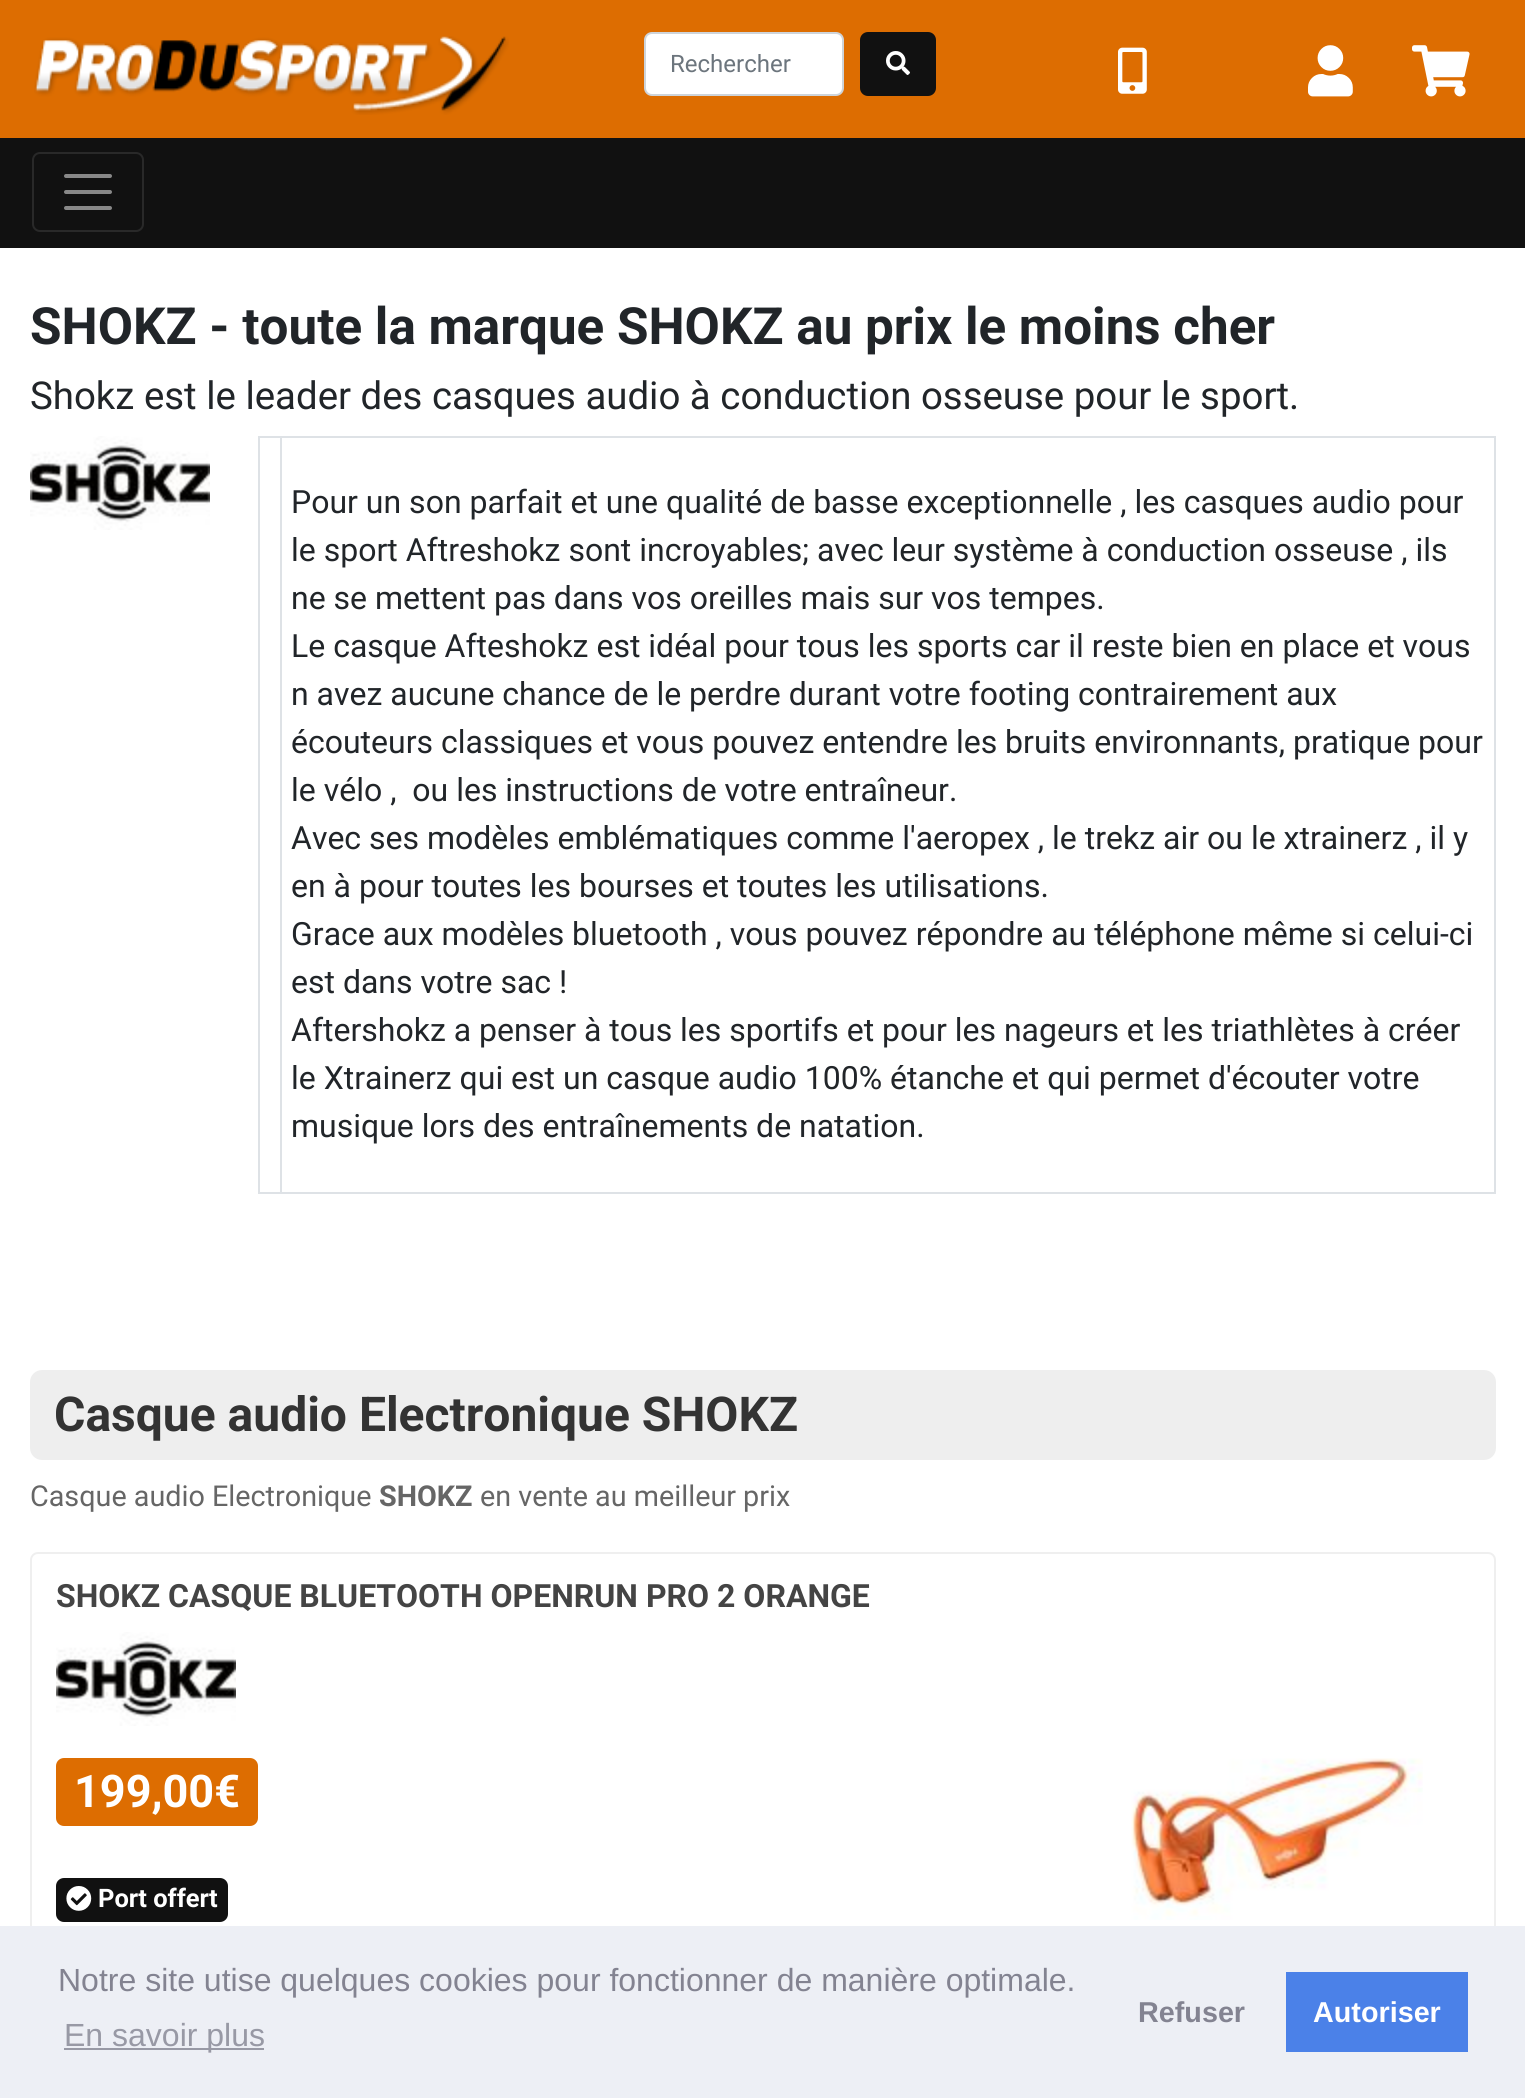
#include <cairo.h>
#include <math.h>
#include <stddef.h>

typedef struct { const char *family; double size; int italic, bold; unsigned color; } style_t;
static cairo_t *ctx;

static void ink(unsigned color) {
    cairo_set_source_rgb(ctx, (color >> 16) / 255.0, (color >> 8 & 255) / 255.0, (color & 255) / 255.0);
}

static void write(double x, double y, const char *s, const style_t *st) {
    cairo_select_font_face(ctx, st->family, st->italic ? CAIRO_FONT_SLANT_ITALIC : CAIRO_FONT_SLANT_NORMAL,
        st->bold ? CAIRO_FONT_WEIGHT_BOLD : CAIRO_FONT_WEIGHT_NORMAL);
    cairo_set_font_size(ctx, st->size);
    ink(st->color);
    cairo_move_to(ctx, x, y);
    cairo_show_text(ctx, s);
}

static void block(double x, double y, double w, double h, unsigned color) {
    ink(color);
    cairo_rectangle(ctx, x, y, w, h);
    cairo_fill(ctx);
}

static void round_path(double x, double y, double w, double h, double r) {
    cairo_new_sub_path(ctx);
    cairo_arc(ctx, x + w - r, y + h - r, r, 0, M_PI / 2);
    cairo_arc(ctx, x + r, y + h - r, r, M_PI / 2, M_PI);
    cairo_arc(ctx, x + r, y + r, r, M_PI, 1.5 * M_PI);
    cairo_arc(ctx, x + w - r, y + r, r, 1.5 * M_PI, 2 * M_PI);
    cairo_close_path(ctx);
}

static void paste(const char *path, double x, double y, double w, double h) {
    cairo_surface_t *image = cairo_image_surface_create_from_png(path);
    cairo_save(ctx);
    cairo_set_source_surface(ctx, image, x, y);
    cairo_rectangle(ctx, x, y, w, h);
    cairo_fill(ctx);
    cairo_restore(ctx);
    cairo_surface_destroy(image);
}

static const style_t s1 = {"Roboto", 24, 0, 0, 0x6c757d};
static const style_t s2 = {"Roboto", 51.2, 0, 1, 0x212529};
static const style_t s3 = {"Roboto", 38.4, 0, 0, 0x212529};
static const style_t s4 = {"Roboto", 32, 0, 0, 0x212529};
static const style_t s5 = {"Roboto", 48, 0, 1, 0x333333};
static const style_t s6 = {"Roboto", 28.75, 0, 0, 0x666666};
static const style_t s7 = {"Roboto", 28.75, 0, 1, 0x666666};
static const style_t s8 = {"Roboto", 32, 0, 1, 0x444444};
static const style_t s9 = {"Roboto", 45, 0, 1, 0xffffff};
static const style_t s10 = {"Roboto", 25.5, 0, 1, 0xffffff};
static const style_t s11 = {"Liberation Sans", 32, 0, 0, 0x838391};
static const style_t s12 = {"Liberation Sans", 32, 0, 0, 0x9899a5};
static const style_t s13 = {"Liberation Sans", 28.75, 0, 1, 0x838391};
static const style_t s14 = {"Liberation Sans", 28.75, 0, 1, 0xffffff};

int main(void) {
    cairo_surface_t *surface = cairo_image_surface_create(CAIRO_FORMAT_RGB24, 1525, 2098);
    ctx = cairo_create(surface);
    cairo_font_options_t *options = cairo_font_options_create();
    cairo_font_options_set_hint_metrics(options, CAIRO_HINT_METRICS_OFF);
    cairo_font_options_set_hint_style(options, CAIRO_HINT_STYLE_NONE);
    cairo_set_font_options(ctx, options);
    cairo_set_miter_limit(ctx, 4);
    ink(0xffffff);
    cairo_paint(ctx);
    block(0, 0, 1525, 138, 0xdd6d01);
    paste("pic1.png", 34, 36, 475, 79);
    ink(0xffffff);
    round_path(645, 33, 198, 62, 7);
    cairo_fill_preserve(ctx);
    ink(0xced4da);
    cairo_stroke(ctx);
    write(670, 72, "Rechercher", &s1);
    ink(0x111111);
    round_path(860, 32, 76, 64, 8);
    cairo_fill(ctx);
    paste("pic2.png", 886, 51, 24, 24);
    paste("pic3.png", 1118, 47, 29, 47);
    paste("pic4.png", 1308, 45, 45, 52);
    paste("pic5.png", 1412, 45, 58, 52);
    block(0, 138, 1525, 110, 0x111111);
    round_path(33, 153, 110, 78, 7);
    ink(0x292929);
    cairo_stroke(ctx);
    cairo_new_path(ctx);
    cairo_move_to(ctx, 66, 176);
    cairo_line_to(ctx, 110, 176);
    cairo_move_to(ctx, 66, 192);
    cairo_line_to(ctx, 110, 192);
    cairo_move_to(ctx, 66, 208);
    cairo_line_to(ctx, 110, 208);
    ink(0x888888);
    cairo_set_line_width(ctx, 4);
    cairo_set_line_cap(ctx, CAIRO_LINE_CAP_ROUND);
    cairo_stroke(ctx);
    write(30, 344, "SHOKZ - toute la marque SHOKZ au prix le moins cher", &s2);
    write(30, 409, "Shokz est le leader des casques audio à conduction osseuse pour le sport.", &s3);
    paste("pic6.png", 30, 436, 180, 94);
    block(258, 436, 1238, 2, 0xdee2e6);
    block(1494, 436, 2, 758, 0xdee2e6);
    block(258, 1192, 1238, 2, 0xdee2e6);
    block(258, 436, 2, 758, 0xdee2e6);
    block(280, 436, 2, 758, 0xdee2e6);
    write(291, 513, "Pour un son parfait et une qualité de basse exceptionnelle , les casques audio pour", &s4);
    write(291, 561, "le sport Aftreshokz sont incroyables; avec leur système à conduction osseuse , ils", &s4);
    write(291, 609, "ne se mettent pas dans vos oreilles mais sur vos tempes.", &s4);
    write(291, 657, "Le casque Afteshokz est idéal pour tous les sports car il reste bien en place et vous", &s4);
    write(291, 705, "n avez aucune chance de le perdre durant votre footing contrairement aux", &s4);
    write(291, 753, "écouteurs classiques et vous pouvez entendre les bruits environnants, pratique pour", &s4);
    write(291, 801, "le vélo ,  ou les instructions de votre entraîneur.", &s4);
    write(291, 849, "Avec ses modèles emblématiques comme l'aeropex , le trekz air ou le xtrainerz , il y", &s4);
    write(291, 897, "en à pour toutes les bourses et toutes les utilisations.", &s4);
    write(291, 945, "Grace aux modèles bluetooth , vous pouvez répondre au téléphone même si celui-ci", &s4);
    write(291, 993, "est dans votre sac !", &s4);
    write(291, 1041, "Aftershokz a penser à tous les sportifs et pour les nageurs et les triathlètes à créer", &s4);
    write(291, 1089, "le Xtrainerz qui est un casque audio 100% étanche et qui permet d'écouter votre", &s4);
    write(291, 1137, "musique lors des entraînements de natation.", &s4);
    ink(0xeeeeee);
    round_path(30, 1370, 1466, 90, 12);
    cairo_fill(ctx);
    write(54, 1431, "Casque audio Electronique SHOKZ", &s5);
    write(30, 1506, "Casque audio Electronique", &s6);
    write(379, 1506, "SHOKZ", &s7);
    write(480, 1506, "en vente au meilleur prix", &s6);
    round_path(31, 1553, 1464, 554, 7);
    ink(0xefefef);
    cairo_set_line_width(ctx, 2);
    cairo_set_line_cap(ctx, CAIRO_LINE_CAP_BUTT);
    cairo_stroke(ctx);
    write(56, 1607, "SHOKZ CASQUE BLUETOOTH OPENRUN PRO 2 ORANGE", &s8);
    paste("pic6.png", 56, 1632, 180, 94);
    ink(0xdd6d01);
    round_path(56, 1758, 202, 68, 8);
    cairo_fill(ctx);
    write(74, 1807, "199,00€", &s9);
    ink(0x111111);
    round_path(56, 1878, 172, 44, 8);
    cairo_fill(ctx);
    paste("pic7.png", 66, 1886, 26, 25);
    write(98, 1907, "Port offert", &s10);
    paste("pic8.png", 1131, 1758, 292, 162);
    block(0, 1926, 1525, 172, 0xedeff5);
    write(58, 1991, "Notre site utise quelques cookies pour fonctionner de manière optimale.", &s11);
    block(64, 2048, 200, 2, 0x9899a5);
    write(64, 2046, "En savoir plus", &s12);
    write(1138, 2022, "Refuser", &s13);
    block(1286, 1972, 182, 80, 0x4b81e8);
    write(1313, 2022, "Autoriser", &s14);
    cairo_surface_write_to_png(surface, "screenshot.png");
    cairo_font_options_destroy(options);
    cairo_destroy(ctx);
    cairo_surface_destroy(surface);
    return 0;
}
